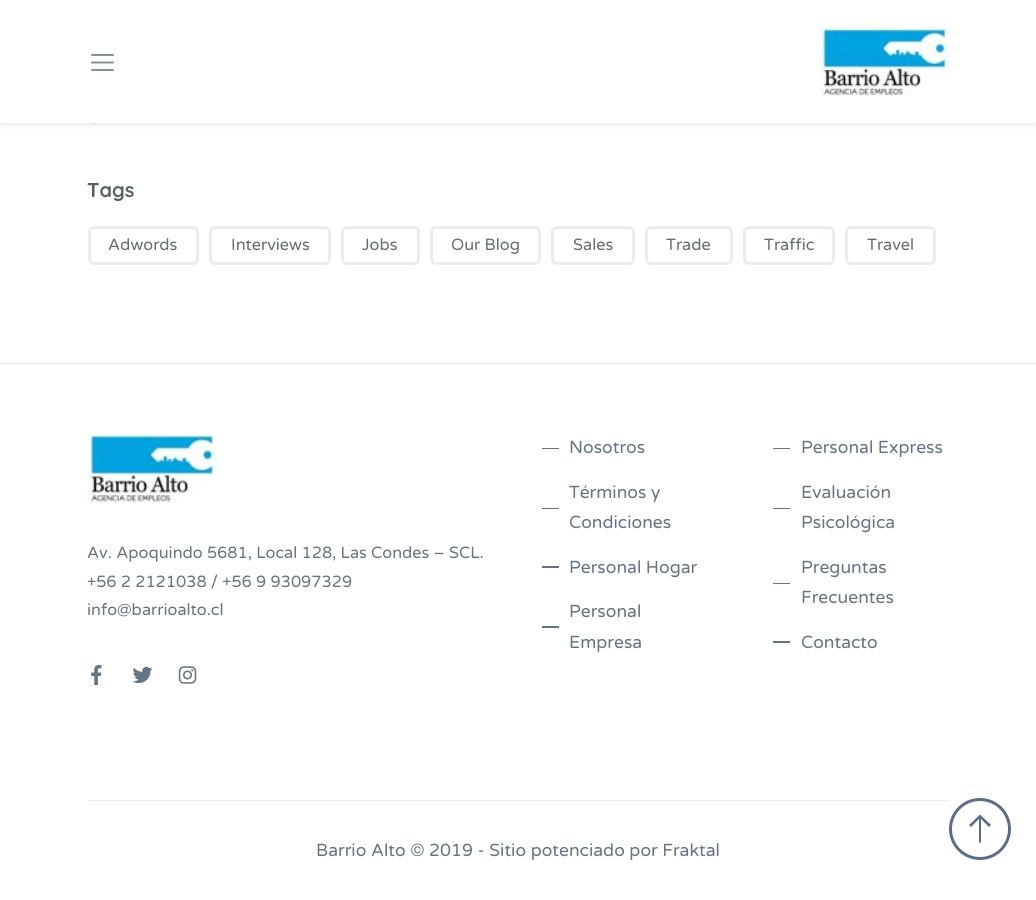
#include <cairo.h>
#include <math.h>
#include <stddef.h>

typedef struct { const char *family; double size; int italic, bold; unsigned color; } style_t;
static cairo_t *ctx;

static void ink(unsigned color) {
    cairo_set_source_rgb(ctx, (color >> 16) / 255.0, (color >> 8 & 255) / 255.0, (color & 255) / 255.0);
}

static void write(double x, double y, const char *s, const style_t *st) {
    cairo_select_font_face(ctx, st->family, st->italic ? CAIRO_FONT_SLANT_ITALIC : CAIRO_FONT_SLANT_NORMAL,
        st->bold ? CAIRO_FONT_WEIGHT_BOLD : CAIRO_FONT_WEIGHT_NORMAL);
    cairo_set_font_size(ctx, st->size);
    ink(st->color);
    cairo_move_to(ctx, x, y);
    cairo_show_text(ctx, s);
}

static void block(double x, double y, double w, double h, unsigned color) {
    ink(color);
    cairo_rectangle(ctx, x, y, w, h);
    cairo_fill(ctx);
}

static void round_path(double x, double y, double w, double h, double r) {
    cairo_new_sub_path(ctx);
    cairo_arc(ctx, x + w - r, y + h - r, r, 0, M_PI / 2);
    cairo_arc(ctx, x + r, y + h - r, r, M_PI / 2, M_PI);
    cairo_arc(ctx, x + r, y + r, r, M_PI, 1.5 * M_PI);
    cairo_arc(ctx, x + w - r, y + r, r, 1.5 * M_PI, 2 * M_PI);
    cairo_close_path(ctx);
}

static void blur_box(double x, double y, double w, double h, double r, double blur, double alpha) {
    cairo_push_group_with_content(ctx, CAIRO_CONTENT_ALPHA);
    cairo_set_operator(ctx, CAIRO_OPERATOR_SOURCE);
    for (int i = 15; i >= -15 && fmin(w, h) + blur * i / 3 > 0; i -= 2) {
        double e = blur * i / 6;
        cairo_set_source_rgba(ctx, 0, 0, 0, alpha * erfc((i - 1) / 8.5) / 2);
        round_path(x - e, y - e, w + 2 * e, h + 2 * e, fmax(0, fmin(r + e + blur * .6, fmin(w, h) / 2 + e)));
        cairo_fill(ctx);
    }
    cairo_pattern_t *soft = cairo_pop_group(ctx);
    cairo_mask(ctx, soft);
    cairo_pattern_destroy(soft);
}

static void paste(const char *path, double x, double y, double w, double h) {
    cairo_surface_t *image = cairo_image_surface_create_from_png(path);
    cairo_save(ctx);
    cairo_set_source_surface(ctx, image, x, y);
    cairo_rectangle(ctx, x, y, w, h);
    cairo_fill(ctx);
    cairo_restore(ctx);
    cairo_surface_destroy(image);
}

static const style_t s1 = {"Quicksand", 20, 0, 1, 0x576366};
static const style_t s2 = {"Varela Round", 16.25, 0, 0, 0x656c72};
static const style_t s3 = {"Varela Round", 16.25, 0, 0, 0x647585};
static const style_t s4 = {"Varela Round", 17.5, 0, 0, 0x647585};

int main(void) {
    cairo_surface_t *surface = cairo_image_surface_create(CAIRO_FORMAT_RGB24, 1036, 900);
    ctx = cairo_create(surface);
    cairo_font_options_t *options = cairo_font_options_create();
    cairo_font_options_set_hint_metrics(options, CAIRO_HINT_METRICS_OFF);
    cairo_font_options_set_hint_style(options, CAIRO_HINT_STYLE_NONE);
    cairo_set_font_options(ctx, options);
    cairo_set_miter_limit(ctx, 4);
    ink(0xffffff);
    cairo_paint(ctx);
    paste("pic3.png", 94, 123, 2, 1);
    ink(0x202020);
    blur_box(0, 3, 1036, 122, 0, 3, 0.1);
    block(0, 0, 1036, 123, 0xffffff);
    paste("pic1.png", 91, 54, 23, 17);
    paste("pic2.png", 820, 27, 130, 70);
    write(87, 197, "Tags", &s1);
    round_path(89.5, 227.5, 108, 36, 4.5);
    ink(0xeaedee);
    cairo_set_line_width(ctx, 3);
    cairo_stroke(ctx);
    write(108, 250, "Adwords", &s2);
    round_path(210.5, 227.5, 119, 36, 4.5);
    ink(0xeaedee);
    cairo_stroke(ctx);
    write(231, 250, "Interviews", &s2);
    round_path(342.5, 227.5, 76, 36, 4.5);
    ink(0xeaedee);
    cairo_stroke(ctx);
    write(362, 250, "Jobs", &s2);
    round_path(431.5, 227.5, 108, 36, 4.5);
    ink(0xeaedee);
    cairo_stroke(ctx);
    write(451, 250, "Our Blog", &s2);
    round_path(552.5, 227.5, 81, 36, 4.5);
    ink(0xeaedee);
    cairo_stroke(ctx);
    write(573, 250, "Sales", &s2);
    round_path(646.5, 227.5, 85, 36, 4.5);
    ink(0xeaedee);
    cairo_stroke(ctx);
    write(666, 250, "Trade", &s2);
    round_path(744.5, 227.5, 89, 36, 4.5);
    ink(0xeaedee);
    cairo_stroke(ctx);
    write(764, 250, "Traffic", &s2);
    round_path(846.5, 227.5, 88, 36, 4.5);
    ink(0xeaedee);
    cairo_stroke(ctx);
    write(867, 250, "Travel", &s2);
    block(0, 363, 1036, 1, 0xeaeeee);
    paste("pic4.png", 87, 434, 131, 69);
    write(87, 558, "Av. Apoquindo 5681, Local 128, Las Condes – SCL.", &s3);
    write(87, 587, "+56 2 2121038 / +56 9 93097329", &s3);
    write(87, 615, "info@barrioalto.cl", &s3);
    paste("pic5.png", 91, 665, 11, 20);
    paste("pic6.png", 132, 666, 21, 18);
    paste("pic7.png", 178, 666, 19, 18);
    block(542, 448, 17, 1, 0x647585);
    write(569, 453, "Nosotros", &s4);
    block(773, 448, 17, 1, 0x647585);
    write(801, 453, "Personal Express", &s4);
    block(542, 508, 17, 1, 0x647585);
    write(569, 498, "Términos y", &s4);
    write(569, 528, "Condiciones", &s4);
    block(773, 508, 17, 1, 0x647585);
    write(801, 498, "Evaluación", &s4);
    write(801, 528, "Psicológica", &s4);
    block(542, 566, 17, 2, 0x647585);
    write(569, 573, "Personal Hogar", &s4);
    block(773, 583, 17, 1, 0x647585);
    write(801, 573, "Preguntas", &s4);
    write(801, 603, "Frecuentes", &s4);
    block(542, 626, 17, 2, 0x647585);
    write(569, 617, "Personal", &s4);
    write(569, 648, "Empresa", &s4);
    block(773, 641, 17, 2, 0x647585);
    write(801, 648, "Contacto", &s4);
    block(88, 800, 862, 1, 0xeaeeee);
    write(316, 856, "Barrio Alto © 2019 - Sitio potenciado por Fraktal", &s4);
    cairo_new_path(ctx);
    cairo_arc(ctx, 980, 829, 29.5, 0, 2 * M_PI);
    ink(0x5d6d88);
    cairo_stroke(ctx);
    cairo_new_path(ctx);
    cairo_move_to(ctx, 980, 814.5);
    cairo_line_to(ctx, 991, 825);
    cairo_line_to(ctx, 989, 827);
    cairo_line_to(ctx, 981, 819);
    cairo_line_to(ctx, 981, 842.5);
    cairo_line_to(ctx, 979, 842.5);
    cairo_line_to(ctx, 979, 819);
    cairo_line_to(ctx, 971, 827);
    cairo_line_to(ctx, 969, 825);
    cairo_close_path(ctx);
    cairo_fill(ctx);
    cairo_surface_write_to_png(surface, "screenshot.png");
    cairo_font_options_destroy(options);
    cairo_destroy(ctx);
    cairo_surface_destroy(surface);
    return 0;
}
